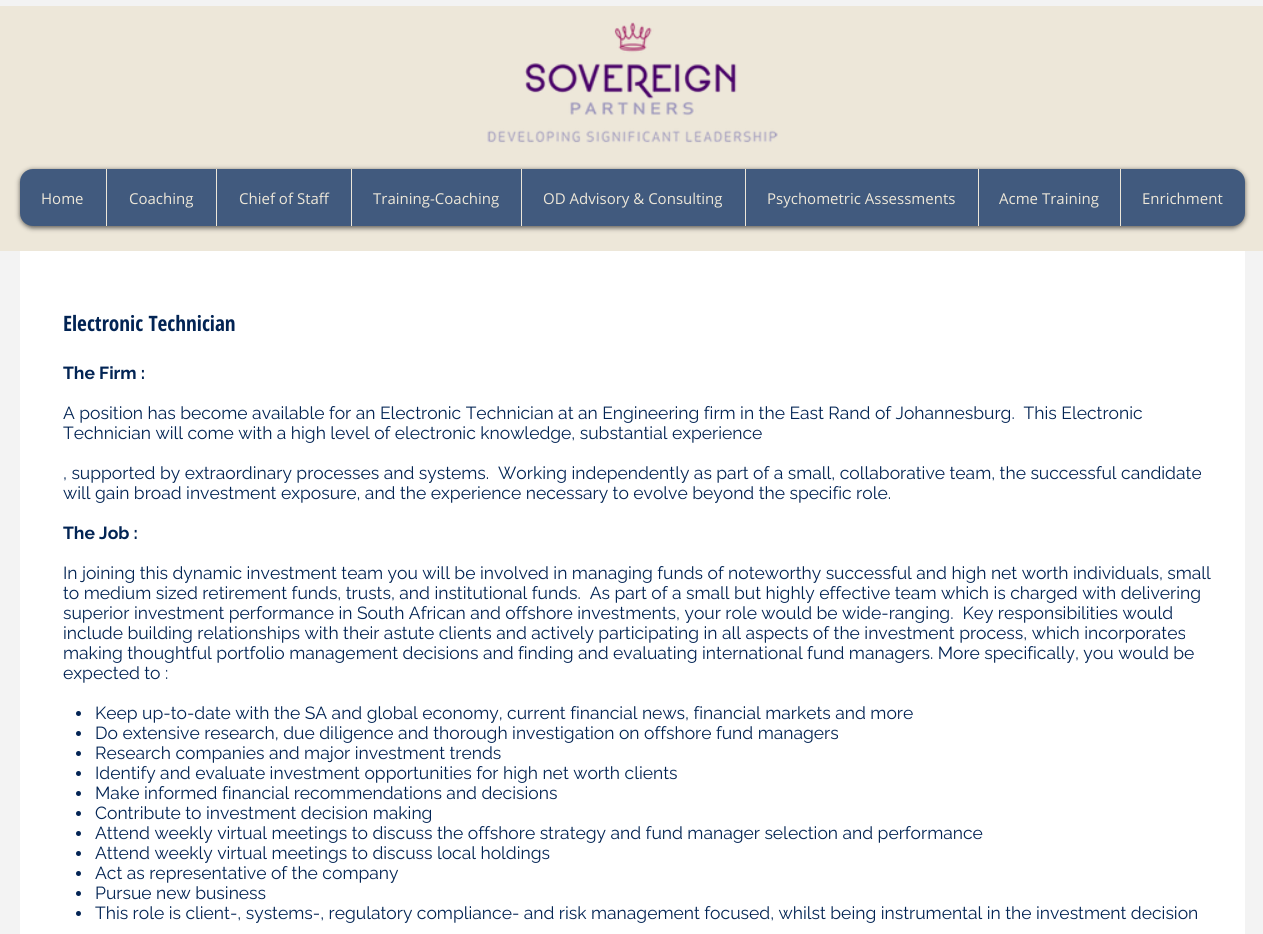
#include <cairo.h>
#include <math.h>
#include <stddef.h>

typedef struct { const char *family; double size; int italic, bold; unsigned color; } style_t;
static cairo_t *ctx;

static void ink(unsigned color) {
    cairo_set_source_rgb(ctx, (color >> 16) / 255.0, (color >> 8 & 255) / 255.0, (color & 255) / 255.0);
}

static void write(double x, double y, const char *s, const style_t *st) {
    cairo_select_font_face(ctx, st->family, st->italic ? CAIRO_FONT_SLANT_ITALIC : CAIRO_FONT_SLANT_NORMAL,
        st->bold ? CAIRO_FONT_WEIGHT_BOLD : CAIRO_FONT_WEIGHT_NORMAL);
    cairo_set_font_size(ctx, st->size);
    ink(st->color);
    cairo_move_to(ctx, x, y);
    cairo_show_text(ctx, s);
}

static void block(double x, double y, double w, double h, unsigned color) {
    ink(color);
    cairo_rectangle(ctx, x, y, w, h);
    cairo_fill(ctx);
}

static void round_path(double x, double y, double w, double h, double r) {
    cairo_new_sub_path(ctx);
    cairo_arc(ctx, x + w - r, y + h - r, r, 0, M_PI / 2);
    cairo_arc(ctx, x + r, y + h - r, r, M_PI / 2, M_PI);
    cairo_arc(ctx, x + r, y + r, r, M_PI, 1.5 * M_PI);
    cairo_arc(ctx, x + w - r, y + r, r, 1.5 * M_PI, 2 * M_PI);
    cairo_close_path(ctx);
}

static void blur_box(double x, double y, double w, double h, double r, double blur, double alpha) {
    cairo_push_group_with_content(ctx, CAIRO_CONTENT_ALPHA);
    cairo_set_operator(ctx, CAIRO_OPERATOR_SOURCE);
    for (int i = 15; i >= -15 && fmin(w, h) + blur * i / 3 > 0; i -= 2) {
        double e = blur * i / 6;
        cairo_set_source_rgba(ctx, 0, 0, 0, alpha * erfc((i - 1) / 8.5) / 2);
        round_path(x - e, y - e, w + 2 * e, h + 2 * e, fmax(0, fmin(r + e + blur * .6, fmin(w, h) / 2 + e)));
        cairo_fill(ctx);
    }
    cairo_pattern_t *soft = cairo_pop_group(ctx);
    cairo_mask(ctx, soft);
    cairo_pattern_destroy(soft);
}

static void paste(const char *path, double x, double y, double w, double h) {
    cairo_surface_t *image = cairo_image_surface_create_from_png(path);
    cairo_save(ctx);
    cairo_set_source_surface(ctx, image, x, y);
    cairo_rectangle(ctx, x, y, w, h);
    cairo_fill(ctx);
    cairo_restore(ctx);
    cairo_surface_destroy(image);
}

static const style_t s1 = {"Open Sans", 15, 0, 0, 0xede7d9};
static const style_t s2 = {"Open Sans Condensed", 21.25, 0, 1, 0x022454};
static const style_t s3 = {"Raleway", 17.5, 0, 1, 0x022454};
static const style_t s4 = {"Raleway", 17.5, 0, 0, 0x022454};

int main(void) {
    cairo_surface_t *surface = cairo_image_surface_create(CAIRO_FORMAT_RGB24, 1263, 934);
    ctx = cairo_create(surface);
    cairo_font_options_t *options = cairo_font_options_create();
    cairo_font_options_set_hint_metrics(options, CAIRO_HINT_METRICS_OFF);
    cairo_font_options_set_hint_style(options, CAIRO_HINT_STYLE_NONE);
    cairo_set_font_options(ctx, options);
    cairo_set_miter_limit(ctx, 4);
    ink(0xf3f3f3);
    cairo_paint(ctx);
    block(0, 6, 1263, 245, 0xede7d9);
    paste("pic1.png", 487, 22, 291, 121);
    ink(0x000000);
    blur_box(20, 170, 1225, 58, 13, 2.5, 0.6);
    ink(0x415a7e);
    round_path(20, 169, 1225, 57, 13);
    cairo_fill(ctx);
    write(41, 204, "Home", &s1);
    block(106, 169, 1, 57, 0xede7d9);
    write(129, 204, "Coaching", &s1);
    block(216, 169, 1, 57, 0xede7d9);
    write(239, 204, "Chief of Staff", &s1);
    block(351, 169, 1, 57, 0xede7d9);
    write(373, 204, "Training-Coaching", &s1);
    block(521, 169, 1, 57, 0xede7d9);
    write(543, 204, "OD Advisory & Consulting", &s1);
    block(745, 169, 1, 57, 0xede7d9);
    write(767, 204, "Psychometric Assessments", &s1);
    block(978, 169, 1, 57, 0xede7d9);
    write(999, 204, "Acme Training", &s1);
    block(1120, 169, 1, 57, 0xede7d9);
    write(1142, 204, "Enrichment", &s1);
    block(20, 251, 1225, 683, 0xffffff);
    write(63, 331, "Electronic Technician", &s2);
    write(63, 379, "The Firm :", &s3);
    write(63, 419, "A position has become available for an Electronic Technician at an Engineering firm in the East Rand of Johannesburg.  This Electronic", &s4);
    write(63, 439, "Technician will come with a high level of electronic knowledge, substantial experience", &s4);
    write(63, 479, ", supported by extraordinary processes and systems.  Working independently as part of a small, collaborative team, the successful candidate", &s4);
    write(63, 499, "will gain broad investment exposure, and the experience necessary to evolve beyond the specific role.", &s4);
    write(63, 539, "The Job :", &s3);
    write(63, 579, "In joining this dynamic investment team you will be involved in managing funds of noteworthy successful and high net worth individuals, small", &s4);
    write(63, 599, "to medium sized retirement funds, trusts, and institutional funds.  As part of a small but highly effective team which is charged with delivering", &s4);
    write(63, 619, "superior investment performance in South African and offshore investments, your role would be wide-ranging.  Key responsibilities would", &s4);
    write(63, 639, "include building relationships with their astute clients and actively participating in all aspects of the investment process, which incorporates", &s4);
    write(63, 659, "making thoughtful portfolio management decisions and finding and evaluating international fund managers. More specifically, you would be", &s4);
    write(63, 679, "expected to :", &s4);
    cairo_new_path(ctx);
    cairo_arc(ctx, 78.5, 713.5, 2.5, 0, 2 * M_PI);
    cairo_fill(ctx);
    write(95, 719, "Keep up-to-date with the SA and global economy, current financial news, financial markets and more", &s4);
    cairo_new_path(ctx);
    cairo_arc(ctx, 78.5, 733.5, 2.5, 0, 2 * M_PI);
    cairo_fill(ctx);
    write(95, 739, "Do extensive research, due diligence and thorough investigation on offshore fund managers", &s4);
    cairo_new_path(ctx);
    cairo_arc(ctx, 78.5, 753.5, 2.5, 0, 2 * M_PI);
    cairo_fill(ctx);
    write(95, 759, "Research companies and major investment trends", &s4);
    cairo_new_path(ctx);
    cairo_arc(ctx, 78.5, 773.5, 2.5, 0, 2 * M_PI);
    cairo_fill(ctx);
    write(95, 779, "Identify and evaluate investment opportunities for high net worth clients", &s4);
    cairo_new_path(ctx);
    cairo_arc(ctx, 78.5, 793.5, 2.5, 0, 2 * M_PI);
    cairo_fill(ctx);
    write(95, 799, "Make informed financial recommendations and decisions", &s4);
    cairo_new_path(ctx);
    cairo_arc(ctx, 78.5, 813.5, 2.5, 0, 2 * M_PI);
    cairo_fill(ctx);
    write(95, 819, "Contribute to investment decision making", &s4);
    cairo_new_path(ctx);
    cairo_arc(ctx, 78.5, 833.5, 2.5, 0, 2 * M_PI);
    cairo_fill(ctx);
    write(95, 839, "Attend weekly virtual meetings to discuss the offshore strategy and fund manager selection and performance", &s4);
    cairo_new_path(ctx);
    cairo_arc(ctx, 78.5, 853.5, 2.5, 0, 2 * M_PI);
    cairo_fill(ctx);
    write(95, 859, "Attend weekly virtual meetings to discuss local holdings", &s4);
    cairo_new_path(ctx);
    cairo_arc(ctx, 78.5, 873.5, 2.5, 0, 2 * M_PI);
    cairo_fill(ctx);
    write(95, 879, "Act as representative of the company", &s4);
    cairo_new_path(ctx);
    cairo_arc(ctx, 78.5, 893.5, 2.5, 0, 2 * M_PI);
    cairo_fill(ctx);
    write(95, 899, "Pursue new business", &s4);
    cairo_new_path(ctx);
    cairo_arc(ctx, 78.5, 913.5, 2.5, 0, 2 * M_PI);
    cairo_fill(ctx);
    write(95, 919, "This role is client-, systems-, regulatory compliance- and risk management focused, whilst being instrumental in the investment decision", &s4);
    cairo_surface_write_to_png(surface, "screenshot.png");
    cairo_font_options_destroy(options);
    cairo_destroy(ctx);
    cairo_surface_destroy(surface);
    return 0;
}
